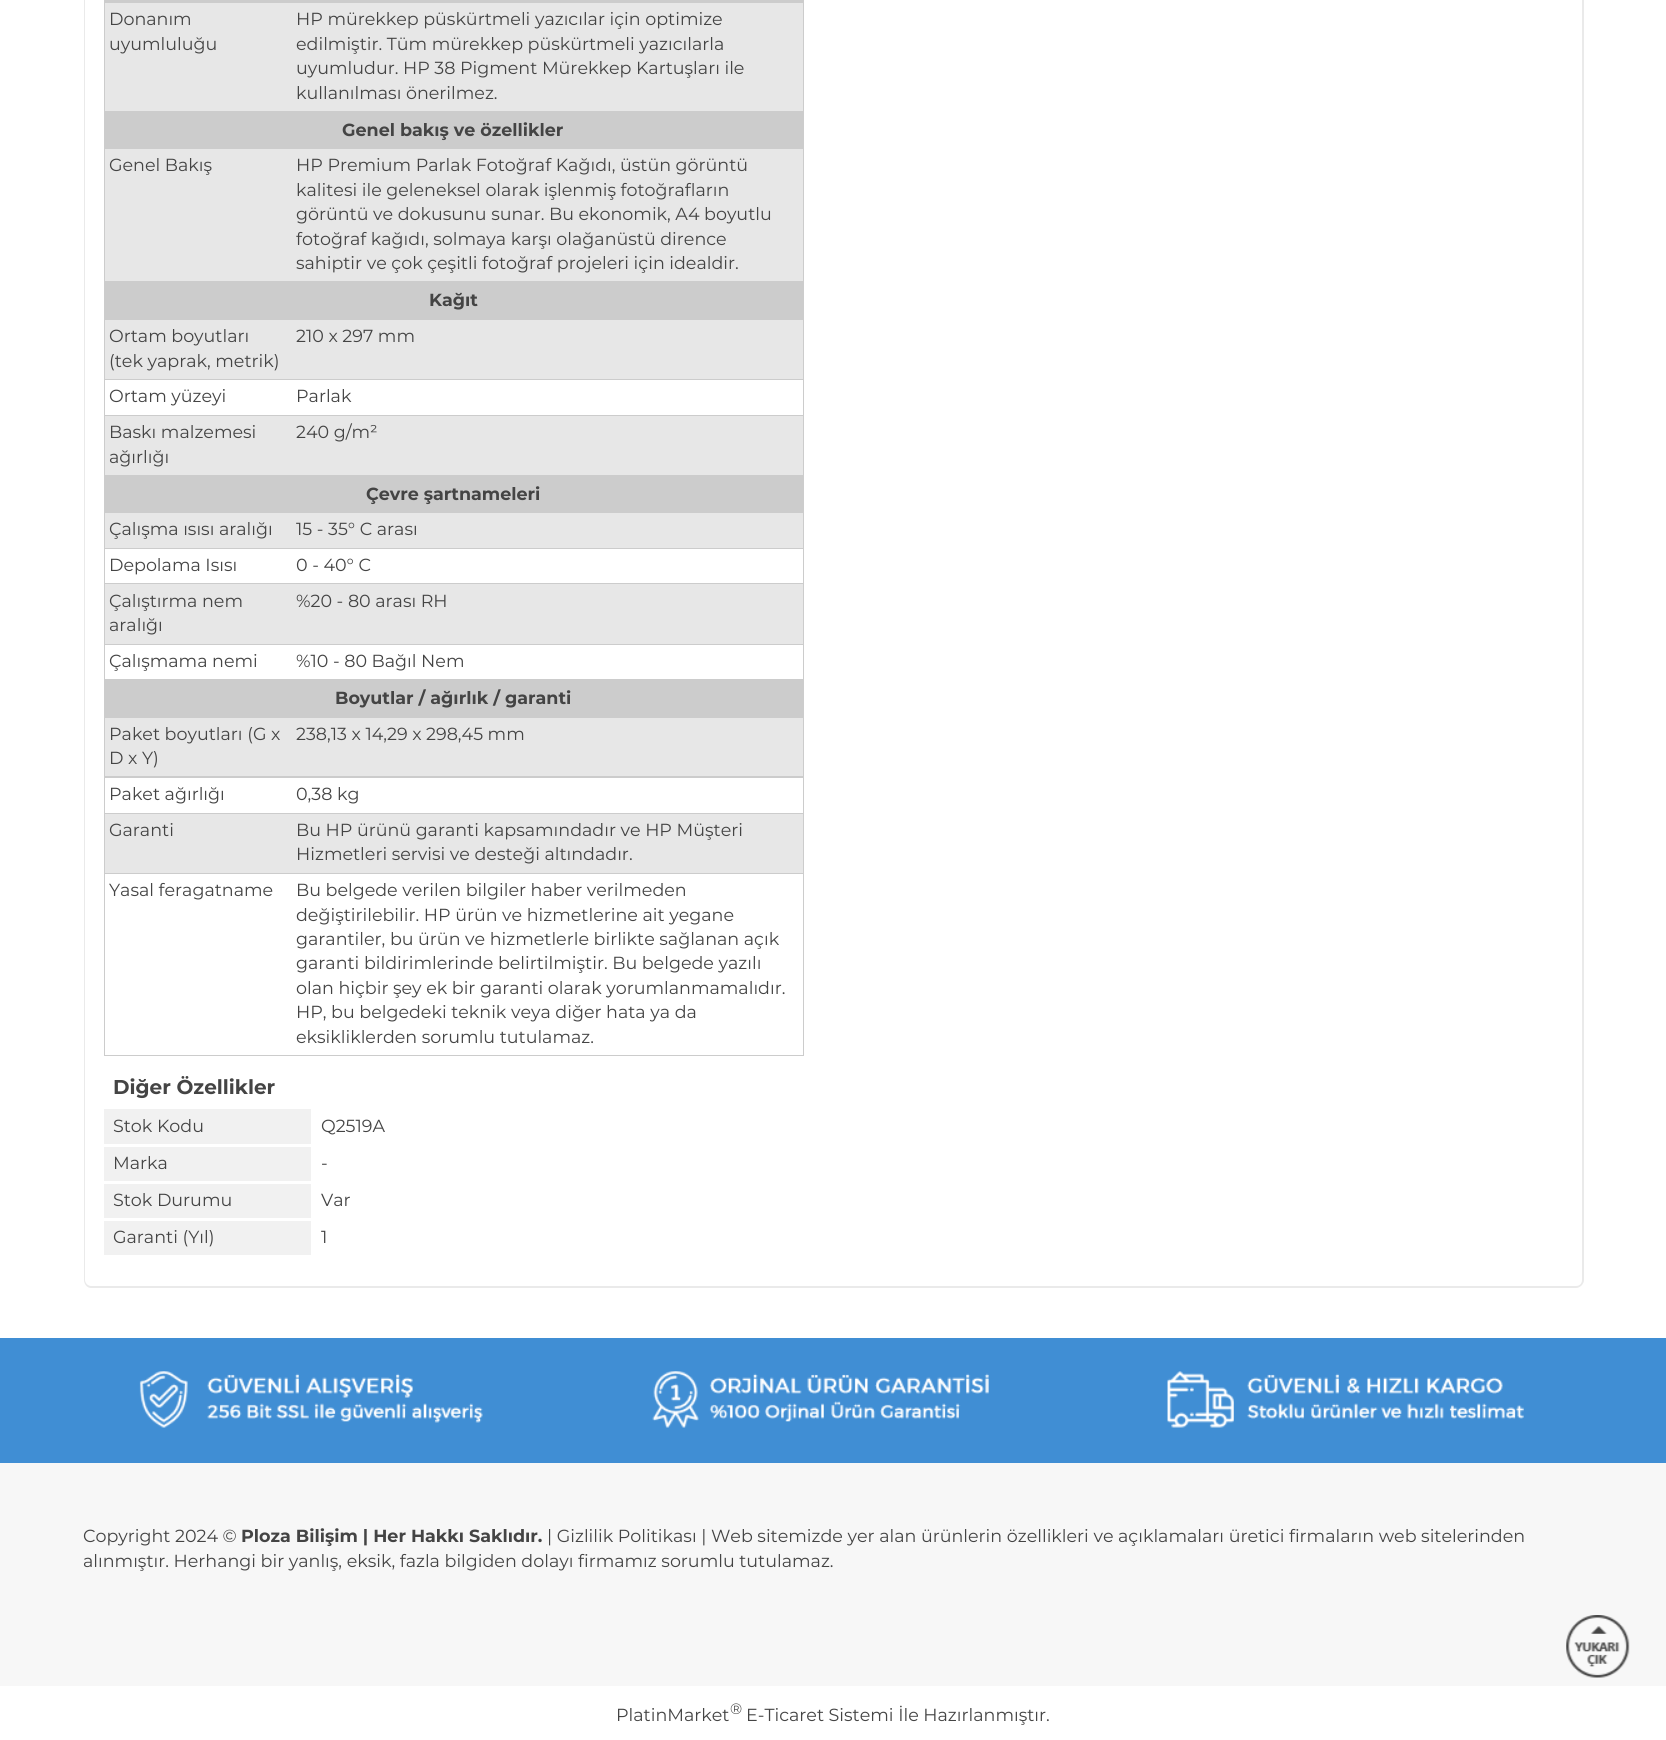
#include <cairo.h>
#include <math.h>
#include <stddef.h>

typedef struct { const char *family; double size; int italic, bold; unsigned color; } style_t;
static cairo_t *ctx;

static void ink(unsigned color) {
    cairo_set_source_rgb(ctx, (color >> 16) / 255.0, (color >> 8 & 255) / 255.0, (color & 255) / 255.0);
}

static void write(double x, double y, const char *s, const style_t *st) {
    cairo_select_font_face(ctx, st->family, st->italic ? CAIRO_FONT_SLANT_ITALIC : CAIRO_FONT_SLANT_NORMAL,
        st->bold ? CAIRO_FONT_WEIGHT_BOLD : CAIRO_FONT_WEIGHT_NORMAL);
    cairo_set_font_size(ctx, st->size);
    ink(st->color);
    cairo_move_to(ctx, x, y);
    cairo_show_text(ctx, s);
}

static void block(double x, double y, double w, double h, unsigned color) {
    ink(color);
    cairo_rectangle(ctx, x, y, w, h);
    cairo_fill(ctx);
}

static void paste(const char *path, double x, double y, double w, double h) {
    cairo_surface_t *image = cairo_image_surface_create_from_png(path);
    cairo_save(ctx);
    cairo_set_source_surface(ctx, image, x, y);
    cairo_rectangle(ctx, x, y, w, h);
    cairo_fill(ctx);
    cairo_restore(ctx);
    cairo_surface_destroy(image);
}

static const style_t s1 = {"Montserrat", 17.5, 0, 0, 0x444444};
static const style_t s2 = {"Montserrat", 17.5, 0, 1, 0x444444};
static const style_t s3 = {"Montserrat", 20, 0, 1, 0x444444};
static const style_t s4 = {"Montserrat", 15, 0, 0, 0x444444};

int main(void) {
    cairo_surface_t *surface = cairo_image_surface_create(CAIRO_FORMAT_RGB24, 1666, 1740);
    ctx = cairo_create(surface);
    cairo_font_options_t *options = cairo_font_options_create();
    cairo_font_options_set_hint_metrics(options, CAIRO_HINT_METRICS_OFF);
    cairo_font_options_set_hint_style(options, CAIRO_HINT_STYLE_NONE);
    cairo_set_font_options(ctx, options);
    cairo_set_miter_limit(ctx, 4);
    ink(0xffffff);
    cairo_paint(ctx);
    ink(0xeaeaea);
    cairo_set_fill_rule(ctx, CAIRO_FILL_RULE_EVEN_ODD);
    cairo_new_path(ctx);
    cairo_move_to(ctx, 84, -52);
    cairo_line_to(ctx, 1584, -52);
    cairo_line_to(ctx, 1584, 1280);
    cairo_curve_to(ctx, 1584, 1284, 1580, 1288, 1576, 1288);
    cairo_line_to(ctx, 91, 1288);
    cairo_curve_to(ctx, 87, 1288, 84, 1284, 84, 1280);
    cairo_close_path(ctx);
    cairo_move_to(ctx, 85, -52);
    cairo_line_to(ctx, 1582, -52);
    cairo_line_to(ctx, 1582, 1280);
    cairo_curve_to(ctx, 1582, 1283, 1580, 1286, 1576, 1286);
    cairo_line_to(ctx, 91, 1286);
    cairo_curve_to(ctx, 88, 1286, 85, 1283, 85, 1280);
    cairo_close_path(ctx);
    cairo_fill(ctx);
    block(104, 0, 700, 1056, 0xcccccc);
    block(105, 3, 698, 108, 0xe7e7e7);
    write(109, 25, "Donanım", &s1);
    write(109, 50, "uyumluluğu", &s1);
    write(296, 25, "HP mürekkep püskürtmeli yazıcılar için optimize", &s1);
    write(296, 50, "edilmiştir. Tüm mürekkep püskürtmeli yazıcılarla", &s1);
    write(296, 74, "uyumludur. HP 38 Pigment Mürekkep Kartuşları ile", &s1);
    write(296, 99, "kullanılması önerilmez.", &s1);
    write(342, 136, "Genel bakış ve özellikler", &s2);
    block(105, 149, 698, 132, 0xe7e7e7);
    write(109, 171, "Genel Bakış", &s1);
    write(296, 171, "HP Premium Parlak Fotoğraf Kağıdı, üstün görüntü", &s1);
    write(296, 196, "kalitesi ile geleneksel olarak işlenmiş fotoğrafların", &s1);
    write(296, 220, "görüntü ve dokusunu sunar. Bu ekonomik, A4 boyutlu", &s1);
    write(296, 245, "fotoğraf kağıdı, solmaya karşı olağanüstü dirence", &s1);
    write(296, 269, "sahiptir ve çok çeşitli fotoğraf projeleri için idealdir.", &s1);
    write(429, 306, "Kağıt", &s2);
    block(105, 320, 698, 59, 0xe7e7e7);
    write(109, 342, "Ortam boyutları", &s1);
    write(109, 367, "(tek yaprak, metrik)", &s1);
    write(296, 342, "210 x 297 mm", &s1);
    block(105, 380, 698, 35, 0xffffff);
    write(109, 402, "Ortam yüzeyi", &s1);
    write(296, 402, "Parlak", &s1);
    block(105, 416, 698, 59, 0xe7e7e7);
    write(109, 438, "Baskı malzemesi", &s1);
    write(109, 463, "ağırlığı", &s1);
    write(296, 438, "240 g/m²", &s1);
    write(366, 500, "Çevre şartnameleri", &s2);
    block(105, 513, 698, 35, 0xe7e7e7);
    write(109, 535, "Çalışma ısısı aralığı", &s1);
    write(296, 535, "15 - 35° C arası", &s1);
    block(105, 549, 698, 34, 0xffffff);
    write(109, 571, "Depolama Isısı", &s1);
    write(296, 571, "0 - 40° C", &s1);
    block(105, 584, 698, 60, 0xe7e7e7);
    write(109, 607, "Çalıştırma nem", &s1);
    write(109, 631, "aralığı", &s1);
    write(296, 607, "%20 - 80 arası RH", &s1);
    block(105, 645, 698, 34, 0xffffff);
    write(109, 667, "Çalışmama nemi", &s1);
    write(296, 667, "%10 - 80 Bağıl Nem", &s1);
    write(335, 704, "Boyutlar / ağırlık / garanti", &s2);
    block(105, 718, 698, 58, 0xe7e7e7);
    write(109, 740, "Paket boyutları (G x", &s1);
    write(109, 764, "D x Y)", &s1);
    write(296, 740, "238,13 x 14,29 x 298,45 mm", &s1);
    block(105, 778, 698, 35, 0xffffff);
    write(109, 800, "Paket ağırlığı", &s1);
    write(296, 800, "0,38 kg", &s1);
    block(105, 814, 698, 59, 0xe7e7e7);
    write(109, 836, "Garanti", &s1);
    write(296, 836, "Bu HP ürünü garanti kapsamındadır ve HP Müşteri", &s1);
    write(296, 860, "Hizmetleri servisi ve desteği altındadır.", &s1);
    block(105, 874, 698, 181, 0xffffff);
    write(109, 896, "Yasal feragatname", &s1);
    write(296, 896, "Bu belgede verilen bilgiler haber verilmeden", &s1);
    write(296, 921, "değiştirilebilir. HP ürün ve hizmetlerine ait yegane", &s1);
    write(296, 945, "garantiler, bu ürün ve hizmetlerle birlikte sağlanan açık", &s1);
    write(296, 969, "garanti bildirimlerinde belirtilmiştir. Bu belgede yazılı", &s1);
    write(296, 994, "olan hiçbir şey ek bir garanti olarak yorumlanmamalıdır.", &s1);
    write(296, 1018, "HP, bu belgedeki teknik veya diğer hata ya da", &s1);
    write(296, 1043, "eksikliklerden sorumlu tutulamaz.", &s1);
    write(113, 1094, "Diğer Özellikler", &s3);
    block(104, 1109, 207, 35, 0xf1f1f1);
    write(113, 1132, "Stok Kodu", &s1);
    write(321, 1132, "Q2519A", &s1);
    block(104, 1147, 207, 34, 0xf1f1f1);
    write(113, 1169, "Marka", &s1);
    write(321, 1169, "-", &s1);
    block(104, 1184, 207, 34, 0xf1f1f1);
    write(113, 1206, "Stok Durumu", &s1);
    write(321, 1206, "Var", &s1);
    block(104, 1221, 207, 34, 0xf1f1f1);
    write(113, 1243, "Garanti (Yıl)", &s1);
    write(321, 1243, "1", &s1);
    block(0, 1338, 1666, 125, 0x408ed4);
    paste("pic1.png", 139, 1371, 1385, 57);
    block(0, 1463, 1666, 223, 0xf7f7f7);
    write(83, 1542, "Copyright 2024 ©", &s1);
    write(241, 1542, "Ploza Bilişim | Her Hakkı Saklıdır.", &s2);
    write(547, 1542, "| Gizlilik Politikası | Web sitemizde yer alan ürünlerin özellikleri ve açıklamaları üretici firmaların web sitelerinden", &s1);
    write(83, 1567, "alınmıştır. Herhangi bir yanlış, eksik, fazla bilgiden dolayı firmamız sorumlu tutulamaz.", &s1);
    paste("pic2.png", 1566, 1615, 64, 63);
    write(616, 1721, "PlatinMarket", &s1);
    write(730, 1714, "®", &s4);
    write(746, 1721, "E-Ticaret Sistemi İle Hazırlanmıştır.", &s1);
    cairo_surface_write_to_png(surface, "screenshot.png");
    cairo_font_options_destroy(options);
    cairo_destroy(ctx);
    cairo_surface_destroy(surface);
    return 0;
}
